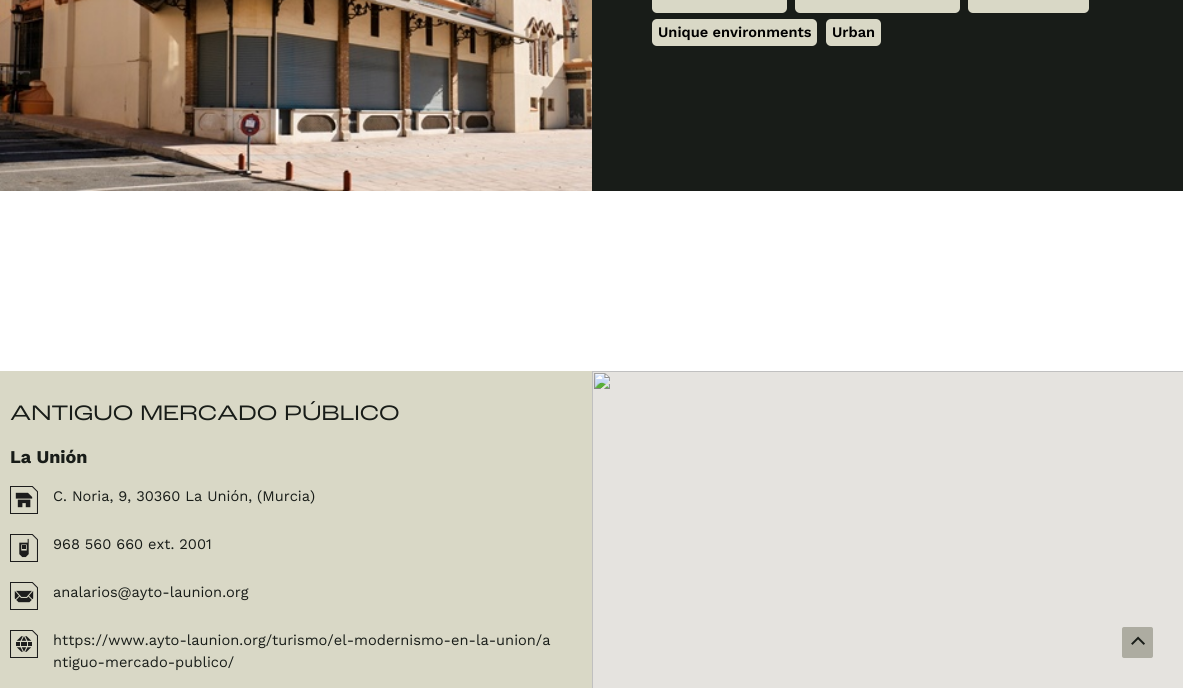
#include <cairo.h>
#include <math.h>
#include <stddef.h>

typedef struct { const char *family; double size; int italic, bold; unsigned color; } style_t;
static cairo_t *ctx;

static void ink(unsigned color) {
    cairo_set_source_rgb(ctx, (color >> 16) / 255.0, (color >> 8 & 255) / 255.0, (color & 255) / 255.0);
}

static void write(double x, double y, const char *s, const style_t *st) {
    cairo_select_font_face(ctx, st->family, st->italic ? CAIRO_FONT_SLANT_ITALIC : CAIRO_FONT_SLANT_NORMAL,
        st->bold ? CAIRO_FONT_WEIGHT_BOLD : CAIRO_FONT_WEIGHT_NORMAL);
    cairo_set_font_size(ctx, st->size);
    ink(st->color);
    cairo_move_to(ctx, x, y);
    cairo_show_text(ctx, s);
}

static void block(double x, double y, double w, double h, unsigned color) {
    ink(color);
    cairo_rectangle(ctx, x, y, w, h);
    cairo_fill(ctx);
}

static void round_path(double x, double y, double w, double h, double r) {
    cairo_new_sub_path(ctx);
    cairo_arc(ctx, x + w - r, y + h - r, r, 0, M_PI / 2);
    cairo_arc(ctx, x + r, y + h - r, r, M_PI / 2, M_PI);
    cairo_arc(ctx, x + r, y + r, r, M_PI, 1.5 * M_PI);
    cairo_arc(ctx, x + w - r, y + r, r, 1.5 * M_PI, 2 * M_PI);
    cairo_close_path(ctx);
}

static void paste(const char *path, double x, double y, double w, double h) {
    cairo_surface_t *image = cairo_image_surface_create_from_png(path);
    cairo_save(ctx);
    cairo_set_source_surface(ctx, image, x, y);
    cairo_rectangle(ctx, x, y, w, h);
    cairo_fill(ctx);
    cairo_restore(ctx);
    cairo_surface_destroy(image);
}

static const style_t s1 = {"Work Sans SemiBold", 14.6, 0, 0, 0x000000};
static const style_t s2 = {"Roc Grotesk", 22, 0, 0, 0x181c18};
static const style_t s3 = {"Work Sans", 18, 0, 1, 0x181c18};
static const style_t s4 = {"Work Sans", 14.6, 0, 0, 0x181c18};

int main(void) {
    cairo_surface_t *surface = cairo_image_surface_create(CAIRO_FORMAT_RGB24, 1183, 688);
    ctx = cairo_create(surface);
    cairo_font_options_t *options = cairo_font_options_create();
    cairo_font_options_set_hint_metrics(options, CAIRO_HINT_METRICS_OFF);
    cairo_font_options_set_hint_style(options, CAIRO_HINT_STYLE_NONE);
    cairo_set_font_options(ctx, options);
    cairo_set_miter_limit(ctx, 4);
    ink(0xffffff);
    cairo_paint(ctx);
    block(592, 0, 591, 191, 0x181c18);
    paste("pic1.png", 0, 0, 592, 191);
    ink(0xd9d8c6);
    round_path(652, -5, 135, 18, 5);
    cairo_fill(ctx);
    round_path(795, -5, 165, 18, 5);
    cairo_fill(ctx);
    round_path(968, -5, 121, 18, 5);
    cairo_fill(ctx);
    round_path(652, 19, 165, 27, 5);
    cairo_fill(ctx);
    write(658, 37, "Unique environments", &s1);
    ink(0xd9d8c6);
    round_path(826, 19, 55, 27, 5);
    cairo_fill(ctx);
    write(832, 37, "Urban", &s1);
    block(0, 371, 592, 317, 0xd9d8c6);
    write(10, 420, "ANTIGUO MERCADO PÚBLICO", &s2);
    write(10, 463, "La Unión", &s3);
    paste("pic2.png", 10, 486, 28, 28);
    write(53, 501, "C. Noria, 9, 30360 La Unión, (Murcia)", &s4);
    paste("pic3.png", 10, 534, 28, 28);
    write(53, 549, "968 560 660 ext. 2001", &s4);
    paste("pic4.png", 10, 582, 28, 28);
    write(53, 597, "analarios@ayto-launion.org", &s4);
    paste("pic5.png", 10, 630, 28, 28);
    write(53, 645, "https://www.ayto-launion.org/turismo/el-modernismo-en-la-union/a", &s4);
    write(53, 667, "ntiguo-mercado-publico/", &s4);
    paste("pic6.png", 592, 371, 591, 317);
    ink(0xadaca1);
    round_path(1122, 627, 31, 31, 2);
    cairo_fill(ctx);
    paste("pic7.png", 1131, 636, 14, 9);
    cairo_surface_write_to_png(surface, "screenshot.png");
    cairo_font_options_destroy(options);
    cairo_destroy(ctx);
    cairo_surface_destroy(surface);
    return 0;
}
